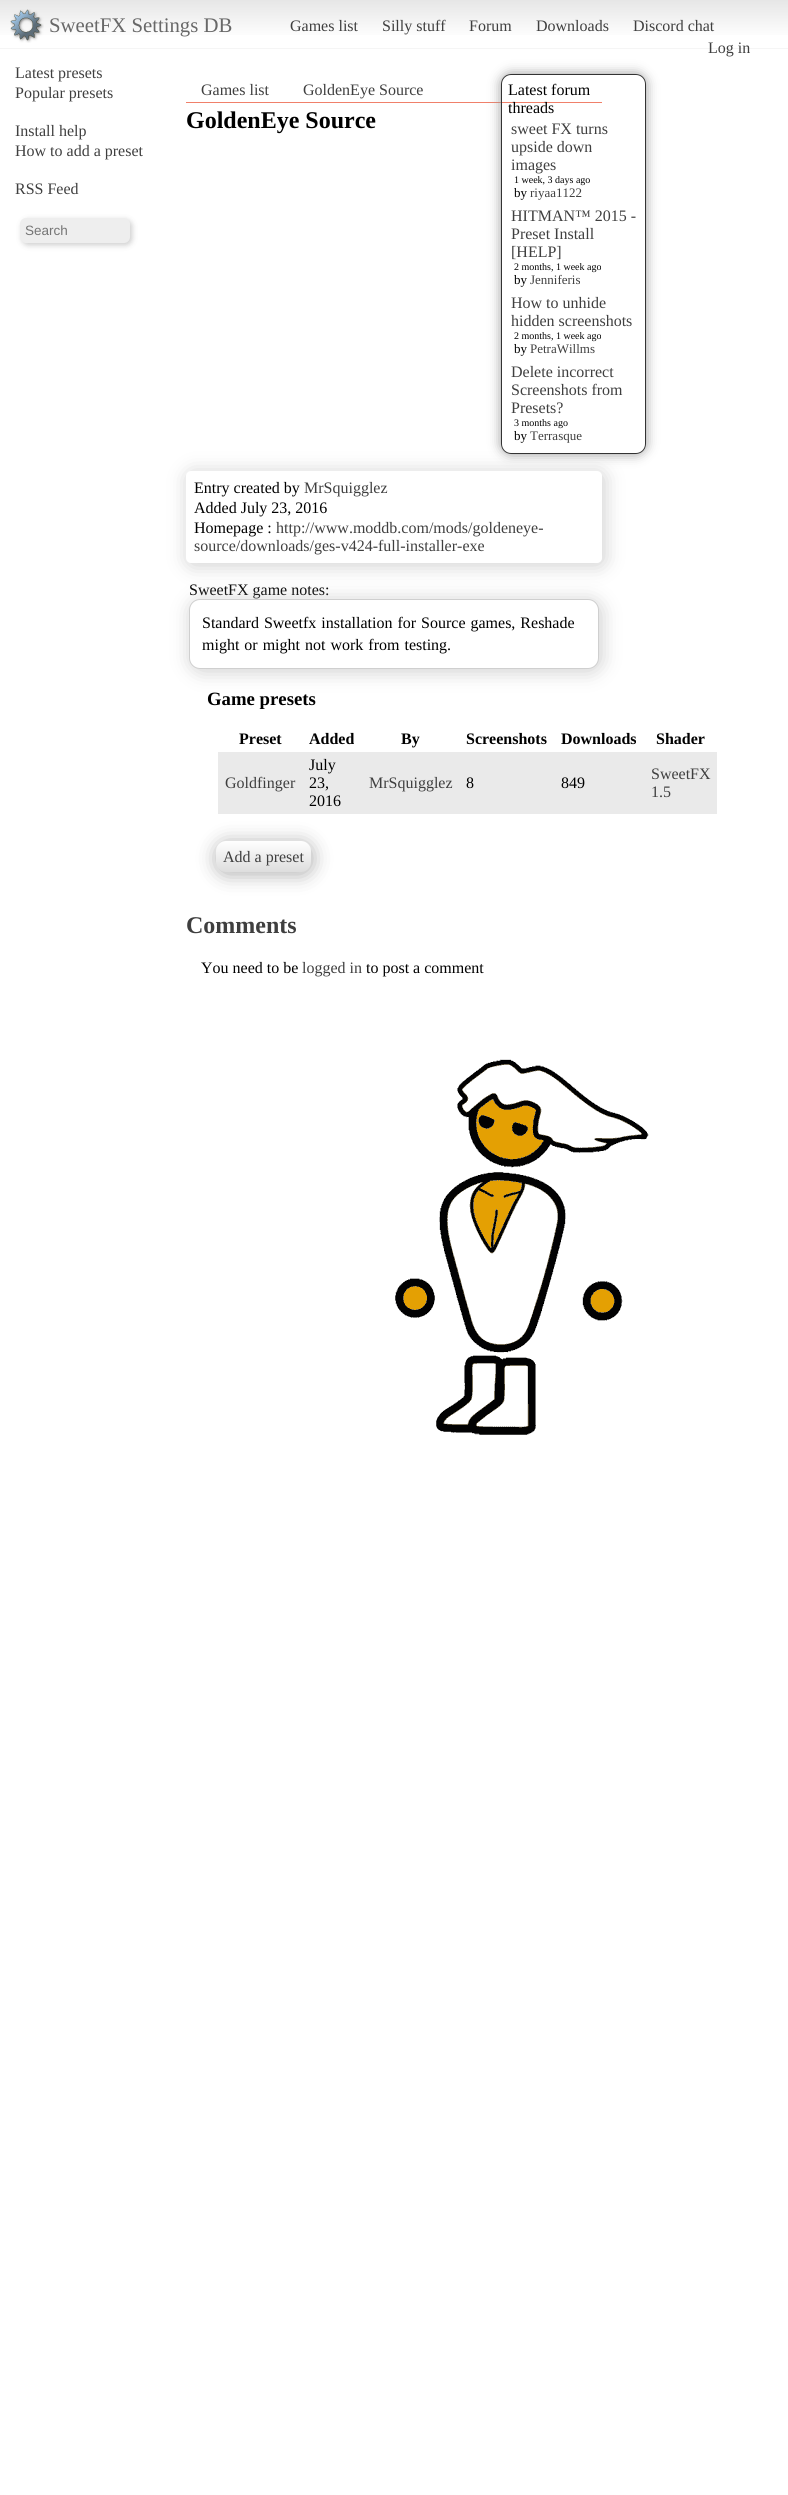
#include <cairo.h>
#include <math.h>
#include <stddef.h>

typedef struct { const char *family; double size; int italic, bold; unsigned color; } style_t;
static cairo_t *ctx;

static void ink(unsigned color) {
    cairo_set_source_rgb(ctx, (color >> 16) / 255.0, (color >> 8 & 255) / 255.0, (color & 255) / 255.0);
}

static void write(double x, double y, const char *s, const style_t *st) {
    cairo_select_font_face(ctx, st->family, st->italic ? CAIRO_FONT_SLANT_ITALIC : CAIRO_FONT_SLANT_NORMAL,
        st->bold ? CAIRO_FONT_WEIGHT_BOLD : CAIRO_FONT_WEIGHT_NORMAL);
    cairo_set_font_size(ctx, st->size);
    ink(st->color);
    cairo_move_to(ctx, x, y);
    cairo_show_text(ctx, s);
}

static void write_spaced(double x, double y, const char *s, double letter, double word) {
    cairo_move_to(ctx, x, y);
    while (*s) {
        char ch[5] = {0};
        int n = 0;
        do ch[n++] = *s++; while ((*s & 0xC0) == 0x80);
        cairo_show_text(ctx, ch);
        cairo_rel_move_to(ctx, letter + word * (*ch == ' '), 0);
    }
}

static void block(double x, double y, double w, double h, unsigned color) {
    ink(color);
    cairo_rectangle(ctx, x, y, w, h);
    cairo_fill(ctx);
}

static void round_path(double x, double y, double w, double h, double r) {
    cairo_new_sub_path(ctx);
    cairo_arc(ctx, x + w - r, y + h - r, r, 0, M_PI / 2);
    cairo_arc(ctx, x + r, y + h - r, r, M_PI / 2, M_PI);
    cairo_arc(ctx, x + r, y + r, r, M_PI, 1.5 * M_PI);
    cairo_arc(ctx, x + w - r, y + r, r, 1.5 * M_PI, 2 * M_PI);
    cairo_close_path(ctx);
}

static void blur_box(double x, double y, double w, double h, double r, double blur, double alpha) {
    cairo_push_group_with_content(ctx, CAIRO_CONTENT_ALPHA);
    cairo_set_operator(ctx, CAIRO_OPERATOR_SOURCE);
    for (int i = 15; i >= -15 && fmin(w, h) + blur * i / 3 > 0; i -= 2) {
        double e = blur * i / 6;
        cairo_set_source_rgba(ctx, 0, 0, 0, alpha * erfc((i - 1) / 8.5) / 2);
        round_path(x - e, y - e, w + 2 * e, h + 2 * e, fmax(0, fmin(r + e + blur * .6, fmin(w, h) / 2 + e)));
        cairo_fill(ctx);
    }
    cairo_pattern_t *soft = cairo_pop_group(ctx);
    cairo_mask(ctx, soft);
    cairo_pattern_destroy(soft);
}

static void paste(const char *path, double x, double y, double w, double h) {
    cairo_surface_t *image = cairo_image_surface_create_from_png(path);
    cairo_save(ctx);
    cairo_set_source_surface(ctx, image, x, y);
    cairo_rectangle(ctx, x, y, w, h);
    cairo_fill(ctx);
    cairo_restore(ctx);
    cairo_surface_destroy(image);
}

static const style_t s1 = {"Liberation Serif", 20.75, 0, 0, 0x686868};
static const style_t s2 = {"Liberation Serif", 16, 0, 0, 0x3f3f3f};
static const style_t s3 = {"Liberation Sans", 13.5, 0, 0, 0x757575};
static const style_t s4 = {"Liberation Serif", 24, 0, 1, 0x000000};
static const style_t s5 = {"Liberation Serif", 16, 0, 0, 0x000000};
static const style_t s6 = {"Liberation Serif", 18.75, 0, 1, 0x000000};
static const style_t s7 = {"Liberation Serif", 16, 0, 1, 0x000000};
static const style_t s8 = {"Liberation Serif", 24, 0, 1, 0x3f3f3f};
static const style_t s9 = {"Liberation Serif", 10, 0, 0, 0x000000};
static const style_t s10 = {"Liberation Serif", 13, 0, 0, 0x000000};
static const style_t s11 = {"Liberation Serif", 13, 0, 0, 0x3f3f3f};

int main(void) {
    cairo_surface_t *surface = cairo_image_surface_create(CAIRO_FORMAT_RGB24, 788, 2495);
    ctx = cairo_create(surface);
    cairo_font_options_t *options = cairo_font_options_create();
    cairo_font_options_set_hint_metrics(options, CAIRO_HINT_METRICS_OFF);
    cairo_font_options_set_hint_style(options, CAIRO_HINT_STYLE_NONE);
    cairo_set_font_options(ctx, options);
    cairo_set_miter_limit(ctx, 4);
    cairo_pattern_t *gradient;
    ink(0xffffff);
    cairo_paint(ctx);
    paste("pic1.png", 395, 1059, 254, 376);
    gradient = cairo_pattern_create_linear(394, 0, 394, 48);
    cairo_pattern_add_color_stop_rgba(gradient, 0, 0.902, 0.902, 0.902, 1);
    cairo_pattern_add_color_stop_rgba(gradient, 0.8, 1, 1, 1, 1);
    cairo_set_source(ctx, gradient);
    cairo_pattern_destroy(gradient);
    cairo_rectangle(ctx, 0, 0, 788, 35);
    cairo_fill(ctx);
    block(0, 48, 788, 1, 0xf5f5f5);
    paste("pic2.png", 10, 9, 34, 34);
    write(49, 32, "SweetFX Settings DB", &s1);
    write(290, 31, "Games list", &s2);
    write(382, 31, "Silly stuff", &s2);
    write(469, 31, "Forum", &s2);
    write(536, 31, "Downloads", &s2);
    write(633, 31, "Discord chat", &s2);
    write(708, 53, "Log in", &s2);
    write(15, 78, "Latest presets", &s2);
    write(15, 98, "Popular presets", &s2);
    write(15, 136, "Install help", &s2);
    write(15, 156, "How to add a preset", &s2);
    write(15, 194, "RSS Feed", &s2);
    ink(0x323232);
    blur_box(22, 220, 110, 25, 6, 3, 0.25);
    ink(0xeeeeee);
    round_path(20, 218, 110, 25, 6);
    cairo_fill(ctx);
    write(25, 235, "Search", &s3);
    block(186, 102, 416, 1, 0xf0806a);
    write(201, 95, "Games list", &s2);
    write(303, 95, "GoldenEye Source", &s2);
    write(186, 128, "GoldenEye Source", &s4);
    cairo_save(ctx);
    cairo_set_fill_rule(ctx, CAIRO_FILL_RULE_EVEN_ODD);
    cairo_new_path(ctx);
    cairo_move_to(ctx, 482, 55);
    cairo_line_to(ctx, 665, 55);
    cairo_line_to(ctx, 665, 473);
    cairo_line_to(ctx, 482, 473);
    cairo_close_path(ctx);
    cairo_move_to(ctx, 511, 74);
    cairo_line_to(ctx, 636, 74);
    cairo_curve_to(ctx, 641.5, 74, 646, 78.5, 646, 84);
    cairo_line_to(ctx, 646, 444);
    cairo_curve_to(ctx, 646, 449.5, 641.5, 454, 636, 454);
    cairo_line_to(ctx, 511, 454);
    cairo_curve_to(ctx, 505.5, 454, 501, 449.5, 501, 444);
    cairo_line_to(ctx, 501, 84);
    cairo_curve_to(ctx, 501, 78.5, 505.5, 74, 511, 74);
    cairo_close_path(ctx);
    cairo_clip(ctx);
    ink(0x999999);
    blur_box(501, 74, 145, 380, 10, 6, 1);
    cairo_restore(ctx);
    round_path(501.5, 74.5, 144, 379, 9.5);
    ink(0x333333);
    cairo_set_line_width(ctx, 1);
    cairo_stroke(ctx);
    ink(0xb6b6b6);
    blur_box(188, 473, 416, 92, 5, 10, 0.68);
    ink(0xffffff);
    round_path(186, 471, 416, 92, 5);
    cairo_fill(ctx);
    write(194, 493, "Entry created by", &s5);
    write(304, 493, "MrSquigglez", &s2);
    write(194, 513, "Added July 23, 2016", &s5);
    write(194, 533, "Homepage :", &s5);
    write(276, 533, "http://www.moddb.com/mods/goldeneye-", &s2);
    write(194, 551, "source/downloads/ges-v424-full-installer-exe", &s2);
    write(189, 595, "SweetFX game notes:", &s5);
    ink(0xb6b6b6);
    blur_box(191, 601, 410, 70, 11, 10, 0.68);
    ink(0xffffff);
    round_path(189.5, 599.5, 409, 69, 10.5);
    cairo_fill_preserve(ctx);
    ink(0xcfcfcf);
    cairo_stroke(ctx);
    ink(0x000000);
    write_spaced(202, 628, "Standard Sweetfx installation for Source games, Reshade", 0, 1);
    write_spaced(202, 650, "might or might not work from testing.", 0, 1);
    write(207, 705, "Game presets", &s6);
    write(239, 744, "Preset", &s7);
    write(309, 744, "Added", &s7);
    write(401, 744, "By", &s7);
    write(466, 744, "Screenshots", &s7);
    write(561, 744, "Downloads", &s7);
    write(656, 744, "Shader", &s7);
    block(218, 752, 499, 62, 0xeaeaea);
    write(225, 788, "Goldfinger", &s2);
    write(309, 770, "July", &s5);
    write(309, 788, "23,", &s5);
    write(309, 806, "2016", &s5);
    write(369, 788, "MrSquigglez", &s2);
    write(466, 788, "8", &s5);
    write(561, 788, "849", &s5);
    write(651, 779, "SweetFX", &s2);
    write(651, 797, "1.5", &s2);
    ink(0x000000);
    blur_box(217, 843, 95, 31, 10, 10, 0.33);
    gradient = cairo_pattern_create_linear(264, 841, 264, 872);
    cairo_pattern_add_color_stop_rgba(gradient, 0, 1, 1, 1, 1);
    cairo_pattern_add_color_stop_rgba(gradient, 1, 0.867, 0.867, 0.867, 1);
    cairo_set_source(ctx, gradient);
    cairo_pattern_destroy(gradient);
    round_path(216, 841, 95, 31, 10);
    cairo_fill(ctx);
    write(223, 862, "Add a preset", &s2);
    write(186, 933, "Comments", &s8);
    write(201, 973, "You need to be", &s5);
    write(302, 973, "logged in", &s2);
    write(366, 973, "to post a comment", &s5);
    write(508, 95, "Latest forum", &s5);
    write(508, 113, "threads", &s5);
    write(511, 134, "sweet FX turns", &s2);
    write(511, 152, "upside down", &s2);
    write(511, 170, "images", &s2);
    write(514, 183, "1 week, 3 days ago", &s9);
    write(514, 197, "by", &s10);
    write(530, 197, "riyaa1122", &s11);
    write(511, 221, "HITMAN™ 2015 -", &s2);
    write(511, 239, "Preset Install", &s2);
    write(511, 257, "[HELP]", &s2);
    write(514, 270, "2 months, 1 week ago", &s9);
    write(514, 284, "by", &s10);
    write(530, 284, "Jenniferis", &s11);
    write(511, 308, "How to unhide", &s2);
    write(511, 326, "hidden screenshots", &s2);
    write(514, 339, "2 months, 1 week ago", &s9);
    write(514, 353, "by", &s10);
    write(530, 353, "PetraWillms", &s11);
    write(511, 377, "Delete incorrect", &s2);
    write(511, 395, "Screenshots from", &s2);
    write(511, 413, "Presets?", &s2);
    write(514, 426, "3 months ago", &s9);
    write(514, 440, "by", &s10);
    write(530, 440, "Terrasque", &s11);
    cairo_surface_write_to_png(surface, "screenshot.png");
    cairo_font_options_destroy(options);
    cairo_destroy(ctx);
    cairo_surface_destroy(surface);
    return 0;
}
